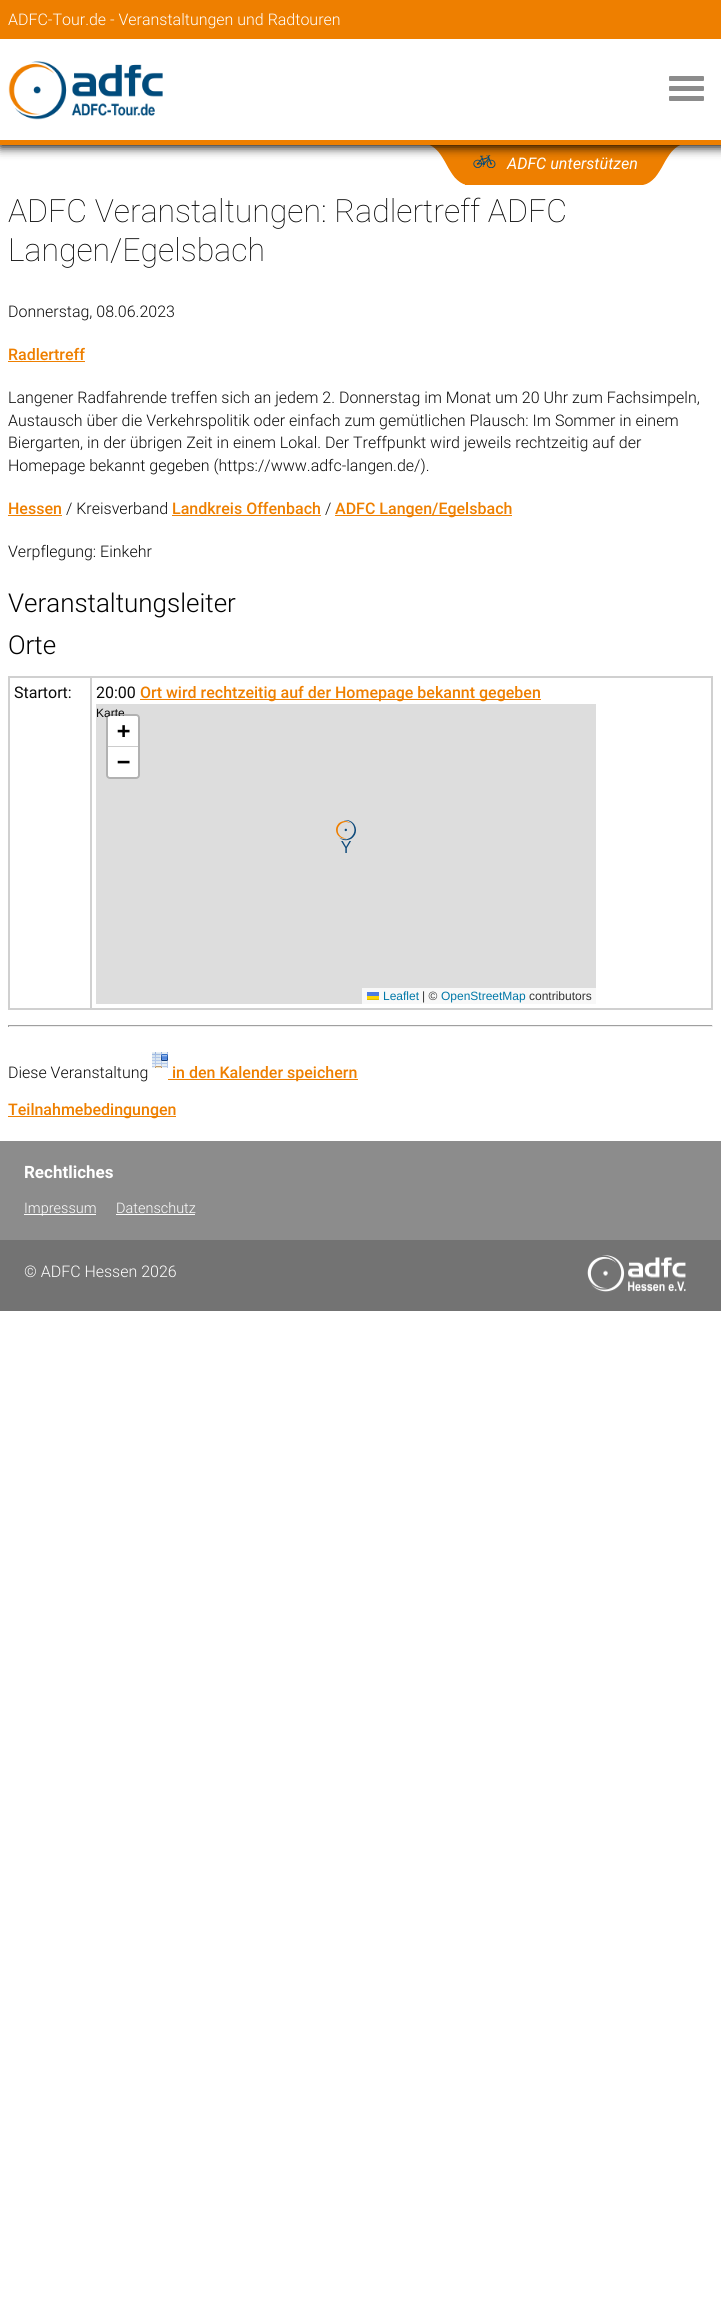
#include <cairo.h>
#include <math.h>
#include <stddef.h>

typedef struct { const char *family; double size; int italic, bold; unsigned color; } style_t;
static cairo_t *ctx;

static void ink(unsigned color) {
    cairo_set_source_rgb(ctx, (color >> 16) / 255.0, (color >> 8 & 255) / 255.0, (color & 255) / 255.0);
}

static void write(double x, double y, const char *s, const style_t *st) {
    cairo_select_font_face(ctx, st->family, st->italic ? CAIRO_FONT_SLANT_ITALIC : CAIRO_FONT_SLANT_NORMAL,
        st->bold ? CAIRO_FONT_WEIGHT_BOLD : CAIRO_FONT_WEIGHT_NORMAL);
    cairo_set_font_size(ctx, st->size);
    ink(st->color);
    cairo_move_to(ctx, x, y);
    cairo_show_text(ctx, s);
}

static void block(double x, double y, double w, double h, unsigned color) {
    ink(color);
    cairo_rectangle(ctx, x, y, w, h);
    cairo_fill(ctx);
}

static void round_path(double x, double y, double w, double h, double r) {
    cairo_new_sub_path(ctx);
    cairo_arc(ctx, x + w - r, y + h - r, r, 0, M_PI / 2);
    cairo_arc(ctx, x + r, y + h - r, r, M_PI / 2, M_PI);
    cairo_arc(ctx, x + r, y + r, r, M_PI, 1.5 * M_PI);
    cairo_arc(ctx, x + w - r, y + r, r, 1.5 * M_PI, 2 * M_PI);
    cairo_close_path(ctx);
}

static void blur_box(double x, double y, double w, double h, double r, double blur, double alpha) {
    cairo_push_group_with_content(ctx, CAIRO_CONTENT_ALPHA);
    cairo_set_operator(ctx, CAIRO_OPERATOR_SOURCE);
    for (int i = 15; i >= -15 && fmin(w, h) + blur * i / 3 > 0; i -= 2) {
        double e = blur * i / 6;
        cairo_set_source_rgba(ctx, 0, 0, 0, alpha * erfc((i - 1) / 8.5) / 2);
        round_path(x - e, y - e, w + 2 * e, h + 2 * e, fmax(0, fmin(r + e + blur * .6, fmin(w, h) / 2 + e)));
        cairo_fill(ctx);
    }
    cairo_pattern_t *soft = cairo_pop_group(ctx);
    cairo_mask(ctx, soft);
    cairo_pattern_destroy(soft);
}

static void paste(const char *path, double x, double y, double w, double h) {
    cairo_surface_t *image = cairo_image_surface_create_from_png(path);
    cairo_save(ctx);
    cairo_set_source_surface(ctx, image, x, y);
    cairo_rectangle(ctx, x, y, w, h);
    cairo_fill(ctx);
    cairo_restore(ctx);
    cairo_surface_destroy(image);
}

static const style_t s1 = {"Roboto Light", 16, 0, 0, 0xffffff};
static const style_t s2 = {"Roboto", 16, 1, 0, 0xffffff};
static const style_t s3 = {"Roboto Thin", 32, 0, 0, 0x000000};
static const style_t s4 = {"Roboto Light", 16, 0, 0, 0x0a0a0a};
static const style_t s5 = {"Roboto Medium", 16, 0, 0, 0xee7f00};
static const style_t s6 = {"Roboto Light", 26, 0, 0, 0x000000};
static const style_t s7 = {"Roboto", 16, 0, 0, 0x0a0a0a};
static const style_t s8 = {"Liberation Sans", 12, 0, 0, 0x0a0a0a};
static const style_t s9 = {"DejaVu Sans Mono", 22, 0, 1, 0x000000};
static const style_t s10 = {"Liberation Sans", 12, 0, 0, 0x0078a8};
static const style_t s11 = {"Liberation Sans", 12, 0, 0, 0x333333};
static const style_t s12 = {"Roboto", 17, 0, 1, 0xffffff};
static const style_t s13 = {"Roboto Light", 14.5, 0, 0, 0xffffff};

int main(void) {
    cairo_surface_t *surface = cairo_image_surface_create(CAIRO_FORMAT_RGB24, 721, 2319);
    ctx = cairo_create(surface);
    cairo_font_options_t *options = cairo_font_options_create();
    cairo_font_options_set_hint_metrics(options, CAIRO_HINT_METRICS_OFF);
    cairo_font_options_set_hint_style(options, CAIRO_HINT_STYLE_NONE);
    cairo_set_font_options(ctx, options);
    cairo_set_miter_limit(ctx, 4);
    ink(0xffffff);
    cairo_paint(ctx);
    block(465, 145, 178, 40, 0xee7f00);
    paste("pic2.png", 429, 145, 36, 40);
    paste("pic3.png", 473, 155, 23, 13);
    paste("pic4.png", 643, 145, 38, 40);
    ink(0x000000);
    blur_box(0, 39, 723, 108, 0, 5.5, 1);
    block(0, 0, 721, 39, 0xee7f00);
    write(8, 25, "ADFC-Tour.de - Veranstaltungen und Radtouren", &s1);
    block(0, 39, 721, 101, 0xffffff);
    block(0, 140, 721, 5, 0xee7f00);
    paste("pic1.png", 8, 61, 155, 59);
    ink(0x8c8c8c);
    round_path(669, 86, 35, 5, 1);
    cairo_fill(ctx);
    round_path(669, 76, 35, 5, 1);
    cairo_fill(ctx);
    round_path(669, 96, 35, 5, 1);
    cairo_fill(ctx);
    write(507, 169, "ADFC unterstützen", &s2);
    write(8, 222, "ADFC Veranstaltungen: Radlertreff ADFC", &s3);
    write(8, 261, "Langen/Egelsbach", &s3);
    write(8, 317, "Donnerstag, 08.06.2023", &s4);
    write(8, 360, "Radlertreff", &s5);
    block(8, 361, 77, 1, 0xee7f00);
    write(8, 403, "Langener Radfahrende treffen sich an jedem 2. Donnerstag im Monat um 20 Uhr zum Fachsimpeln,", &s4);
    write(8, 426, "Austausch über die Verkehrspolitik oder einfach zum gemütlichen Plausch: Im Sommer in einem", &s4);
    write(8, 448, "Biergarten, in der übrigen Zeit in einem Lokal. Der Treffpunkt wird jeweils rechtzeitig auf der", &s4);
    write(8, 471, "Homepage bekannt gegeben (https://www.adfc-langen.de/).", &s4);
    write(8, 514, "Hessen", &s5);
    block(8, 515, 54, 1, 0xee7f00);
    write(66, 514, "/ Kreisverband", &s4);
    write(172, 514, "Landkreis Offenbach", &s5);
    block(172, 515, 149, 1, 0xee7f00);
    write(325, 514, "/", &s4);
    block(335, 515, 177, 1, 0xee7f00);
    write(335, 514, "ADFC Langen/Egelsbach", &s5);
    write(8, 557, "Verpflegung: Einkehr", &s4);
    write(8, 612, "Veranstaltungsleiter", &s6);
    write(8, 654, "Orte", &s6);
    block(8, 676, 705, 2, 0xd0d0d0);
    block(711, 676, 2, 334, 0xd0d0d0);
    block(90, 1008, 623, 2, 0xd0d0d0);
    block(90, 676, 2, 334, 0xd0d0d0);
    block(8, 1008, 84, 2, 0xd0d0d0);
    block(8, 676, 2, 334, 0xd0d0d0);
    write(14, 698, "Startort:", &s7);
    write(96, 698, "20:00", &s7);
    block(140, 699, 401, 1, 0xee7f00);
    write(140, 698, "Ort wird rechtzeitig auf der Homepage bekannt gegeben", &s5);
    block(96, 704, 500, 300, 0xdddddd);
    write(96, 717, "Karte", &s8);
    round_path(107, 715, 32, 63, 3);
    cairo_set_source_rgba(ctx, 0, 0, 0, 0.2);
    cairo_stroke(ctx);
    ink(0xffffff);
    cairo_new_path(ctx);
    cairo_move_to(ctx, 110, 716);
    cairo_line_to(ctx, 136, 716);
    cairo_curve_to(ctx, 137, 716, 138, 717, 138, 718);
    cairo_line_to(ctx, 138, 747);
    cairo_line_to(ctx, 108, 747);
    cairo_line_to(ctx, 108, 718);
    cairo_curve_to(ctx, 108, 717, 109, 716, 110, 716);
    cairo_close_path(ctx);
    cairo_fill(ctx);
    block(108, 746, 30, 1, 0xcccccc);
    write(117, 738, "+", &s9);
    ink(0xffffff);
    cairo_new_path(ctx);
    cairo_move_to(ctx, 108, 747);
    cairo_line_to(ctx, 138, 747);
    cairo_line_to(ctx, 138, 775);
    cairo_curve_to(ctx, 138, 776, 137, 777, 136, 777);
    cairo_line_to(ctx, 110, 777);
    cairo_curve_to(ctx, 109, 777, 108, 776, 108, 775);
    cairo_close_path(ctx);
    cairo_fill(ctx);
    write(117, 769, "−", &s9);
    block(362, 988, 234, 16, 0xf8f8f8);
    write(383, 1000, "Leaflet", &s10);
    block(367, 992, 12, 4, 0x4c7be1);
    block(367, 996, 12, 3, 0xffd500);
    block(367, 999, 12, 1, 0xe0bc00);
    write(422, 1000, "| ©", &s11);
    write(441, 1000, "OpenStreetMap", &s10);
    write(529, 1000, "contributors", &s11);
    paste("pic5.png", 336, 820, 20, 33);
    block(8, 1025, 705, 1, 0x9f9f9f);
    block(712, 1025, 1, 2, 0xeeeeee);
    block(8, 1026, 705, 1, 0xeeeeee);
    block(8, 1025, 1, 2, 0x9f9f9f);
    paste("pic6.png", 152, 1052, 16, 16);
    write(8, 1078, "Diese Veranstaltung", &s4);
    block(168, 1079, 190, 1, 0xee7f00);
    write(172, 1078, "in den Kalender speichern", &s5);
    block(8, 1116, 168, 1, 0xee7f00);
    write(8, 1115, "Teilnahmebedingungen", &s5);
    block(0, 1141, 721, 99, 0x8c8c8c);
    write(24, 1178, "Rechtliches", &s12);
    block(24, 1214, 72, 1, 0xffffff);
    write(24, 1213, "Impressum", &s13);
    write(116, 1213, "Datenschutz", &s13);
    block(116, 1214, 79, 1, 0xffffff);
    block(0, 1240, 721, 71, 0x737373);
    write(24, 1277, "© ADFC Hessen 2026", &s1);
    paste("pic7.png", 587, 1255, 99, 37);
    cairo_surface_write_to_png(surface, "screenshot.png");
    cairo_font_options_destroy(options);
    cairo_destroy(ctx);
    cairo_surface_destroy(surface);
    return 0;
}
